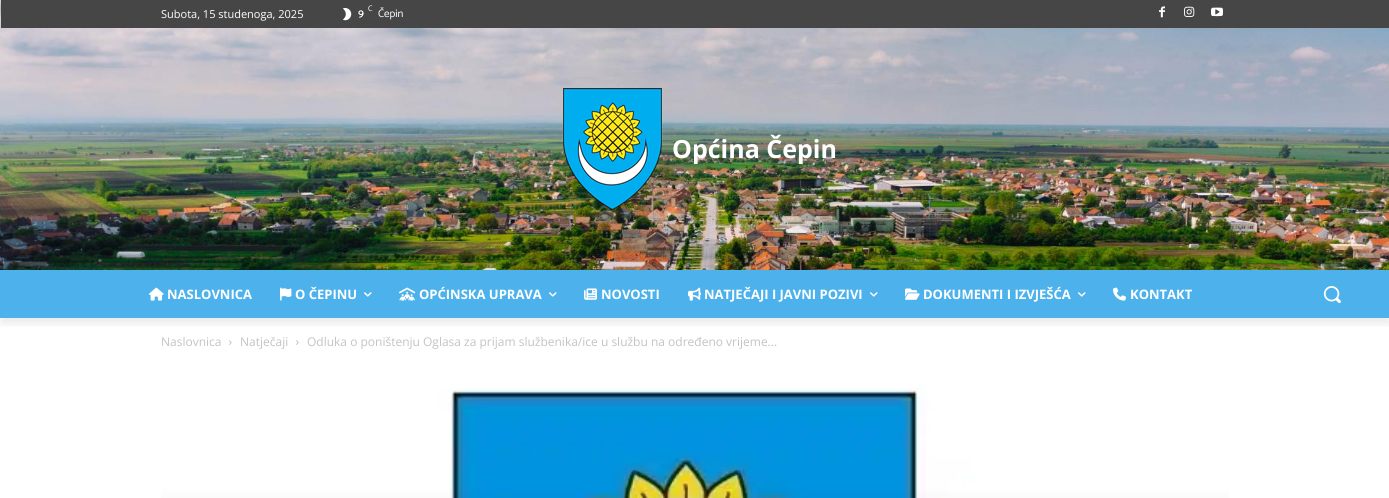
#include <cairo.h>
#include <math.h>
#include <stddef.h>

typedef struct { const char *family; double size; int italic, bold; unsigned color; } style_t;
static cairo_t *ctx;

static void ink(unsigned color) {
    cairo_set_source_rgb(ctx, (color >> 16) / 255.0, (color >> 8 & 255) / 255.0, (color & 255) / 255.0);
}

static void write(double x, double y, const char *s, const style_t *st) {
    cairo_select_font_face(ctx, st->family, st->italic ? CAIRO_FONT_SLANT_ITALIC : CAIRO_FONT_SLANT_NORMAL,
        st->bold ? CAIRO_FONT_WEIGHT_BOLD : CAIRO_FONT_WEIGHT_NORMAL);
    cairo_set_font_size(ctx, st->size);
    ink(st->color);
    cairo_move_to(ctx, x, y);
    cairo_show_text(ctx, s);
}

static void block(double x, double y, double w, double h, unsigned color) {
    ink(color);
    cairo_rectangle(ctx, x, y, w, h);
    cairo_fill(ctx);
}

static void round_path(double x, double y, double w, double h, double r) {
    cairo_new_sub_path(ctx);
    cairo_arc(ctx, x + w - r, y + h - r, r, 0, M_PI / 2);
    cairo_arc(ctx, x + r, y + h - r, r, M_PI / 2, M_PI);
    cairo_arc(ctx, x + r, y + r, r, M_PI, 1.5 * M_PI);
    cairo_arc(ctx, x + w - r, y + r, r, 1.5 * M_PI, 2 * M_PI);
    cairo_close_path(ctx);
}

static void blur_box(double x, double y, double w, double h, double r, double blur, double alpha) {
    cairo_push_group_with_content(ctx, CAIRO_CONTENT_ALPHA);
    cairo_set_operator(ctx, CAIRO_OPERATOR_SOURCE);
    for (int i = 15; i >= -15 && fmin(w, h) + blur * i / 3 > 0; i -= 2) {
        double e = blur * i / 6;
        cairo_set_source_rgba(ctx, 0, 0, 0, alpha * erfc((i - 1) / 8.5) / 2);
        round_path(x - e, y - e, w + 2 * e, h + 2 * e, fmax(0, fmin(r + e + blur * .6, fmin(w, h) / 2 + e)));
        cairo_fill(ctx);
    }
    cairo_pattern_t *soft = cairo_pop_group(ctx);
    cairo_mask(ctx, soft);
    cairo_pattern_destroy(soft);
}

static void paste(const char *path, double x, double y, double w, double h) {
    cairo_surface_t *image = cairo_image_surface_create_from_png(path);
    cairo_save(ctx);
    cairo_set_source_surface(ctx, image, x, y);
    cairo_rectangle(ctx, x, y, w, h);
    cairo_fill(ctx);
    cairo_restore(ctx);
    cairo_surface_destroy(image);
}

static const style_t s1 = {"Open Sans", 11, 0, 0, 0xffffff};
static const style_t s2 = {"Catamaran Thin", 8, 0, 0, 0xffffff};
static const style_t s3 = {"Catamaran", 11, 0, 1, 0xffffff};
static const style_t s4 = {"Catamaran Thin", 11, 0, 0, 0xffffff};
static const style_t s5 = {"Open Sans", 25, 0, 1, 0xffffff};
static const style_t s6 = {"Open Sans", 13, 0, 1, 0xffffff};
static const style_t s7 = {"Open Sans", 12, 0, 0, 0xc3c3c3};

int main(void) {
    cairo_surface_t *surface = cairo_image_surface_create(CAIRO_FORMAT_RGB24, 1389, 498);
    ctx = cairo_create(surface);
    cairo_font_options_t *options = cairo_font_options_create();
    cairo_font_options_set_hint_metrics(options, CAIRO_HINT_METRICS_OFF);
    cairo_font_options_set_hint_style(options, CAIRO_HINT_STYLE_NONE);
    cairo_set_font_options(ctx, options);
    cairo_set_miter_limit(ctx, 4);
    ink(0xffffff);
    cairo_paint(ctx);
    paste("pic1.png", 0, 0, 1389, 270);
    block(1, 0, 1388, 28, 0x464646);
    paste("pic2.png", 342, 7, 10, 14);
    paste("pic3.png", 1159, 6, 6, 12);
    paste("pic4.png", 1184, 6, 11, 11);
    paste("pic5.png", 1211, 7, 12, 10);
    paste("pic6.png", 562, 88, 101, 122);
    block(0, 270, 1389, 48, 0x4db2ec);
    cairo_save(ctx);
    cairo_rectangle(ctx, 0, 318, 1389, 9);
    cairo_clip(ctx);
    ink(0x000000);
    blur_box(1, 6, 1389, 318, 0, 4, 0.08);
    cairo_restore(ctx);
    write(161, 18, "Subota, 15 studenoga, 2025", &s1);
    write(368, 11, "C", &s2);
    write(358, 17, "9", &s3);
    write(378, 17, "Čepin", &s4);
    write(672, 158, "Općina Čepin", &s5);
    paste("pic7.png", 149, 287, 15, 14);
    write(167, 299, "NASLOVNICA", &s6);
    paste("pic8.png", 280, 287, 12, 14);
    write(295, 299, "O ČEPINU", &s6);
    paste("pic9.png", 364, 292, 8, 5);
    paste("pic10.png", 399, 287, 17, 14);
    write(419, 299, "OPĆINSKA UPRAVA", &s6);
    paste("pic9.png", 549, 292, 8, 5);
    paste("pic11.png", 584, 288, 13, 12);
    write(601, 299, "NOVOSTI", &s6);
    paste("pic12.png", 688, 287, 13, 14);
    write(704, 299, "NATJEČAJI I JAVNI POZIVI", &s6);
    paste("pic9.png", 870, 292, 8, 5);
    paste("pic13.png", 905, 288, 15, 12);
    write(923, 299, "DOKUMENTI I IZVJEŠĆA", &s6);
    paste("pic9.png", 1078, 292, 8, 5);
    paste("pic14.png", 1113, 287, 13, 14);
    write(1130, 299, "KONTAKT", &s6);
    paste("pic15.png", 1323, 286, 18, 18);
    write(161, 346, "Naslovnica", &s7);
    paste("pic16.png", 229, 340, 3, 5);
    write(240, 346, "Natječaji", &s7);
    paste("pic16.png", 296, 340, 3, 5);
    write(307, 346, "Odluka o poništenju Oglasa za prijam službenika/ice u službu na određeno vrijeme...", &s7);
    paste("pic17.png", 161, 366, 1068, 132);
    cairo_surface_write_to_png(surface, "screenshot.png");
    cairo_font_options_destroy(options);
    cairo_destroy(ctx);
    cairo_surface_destroy(surface);
    return 0;
}
